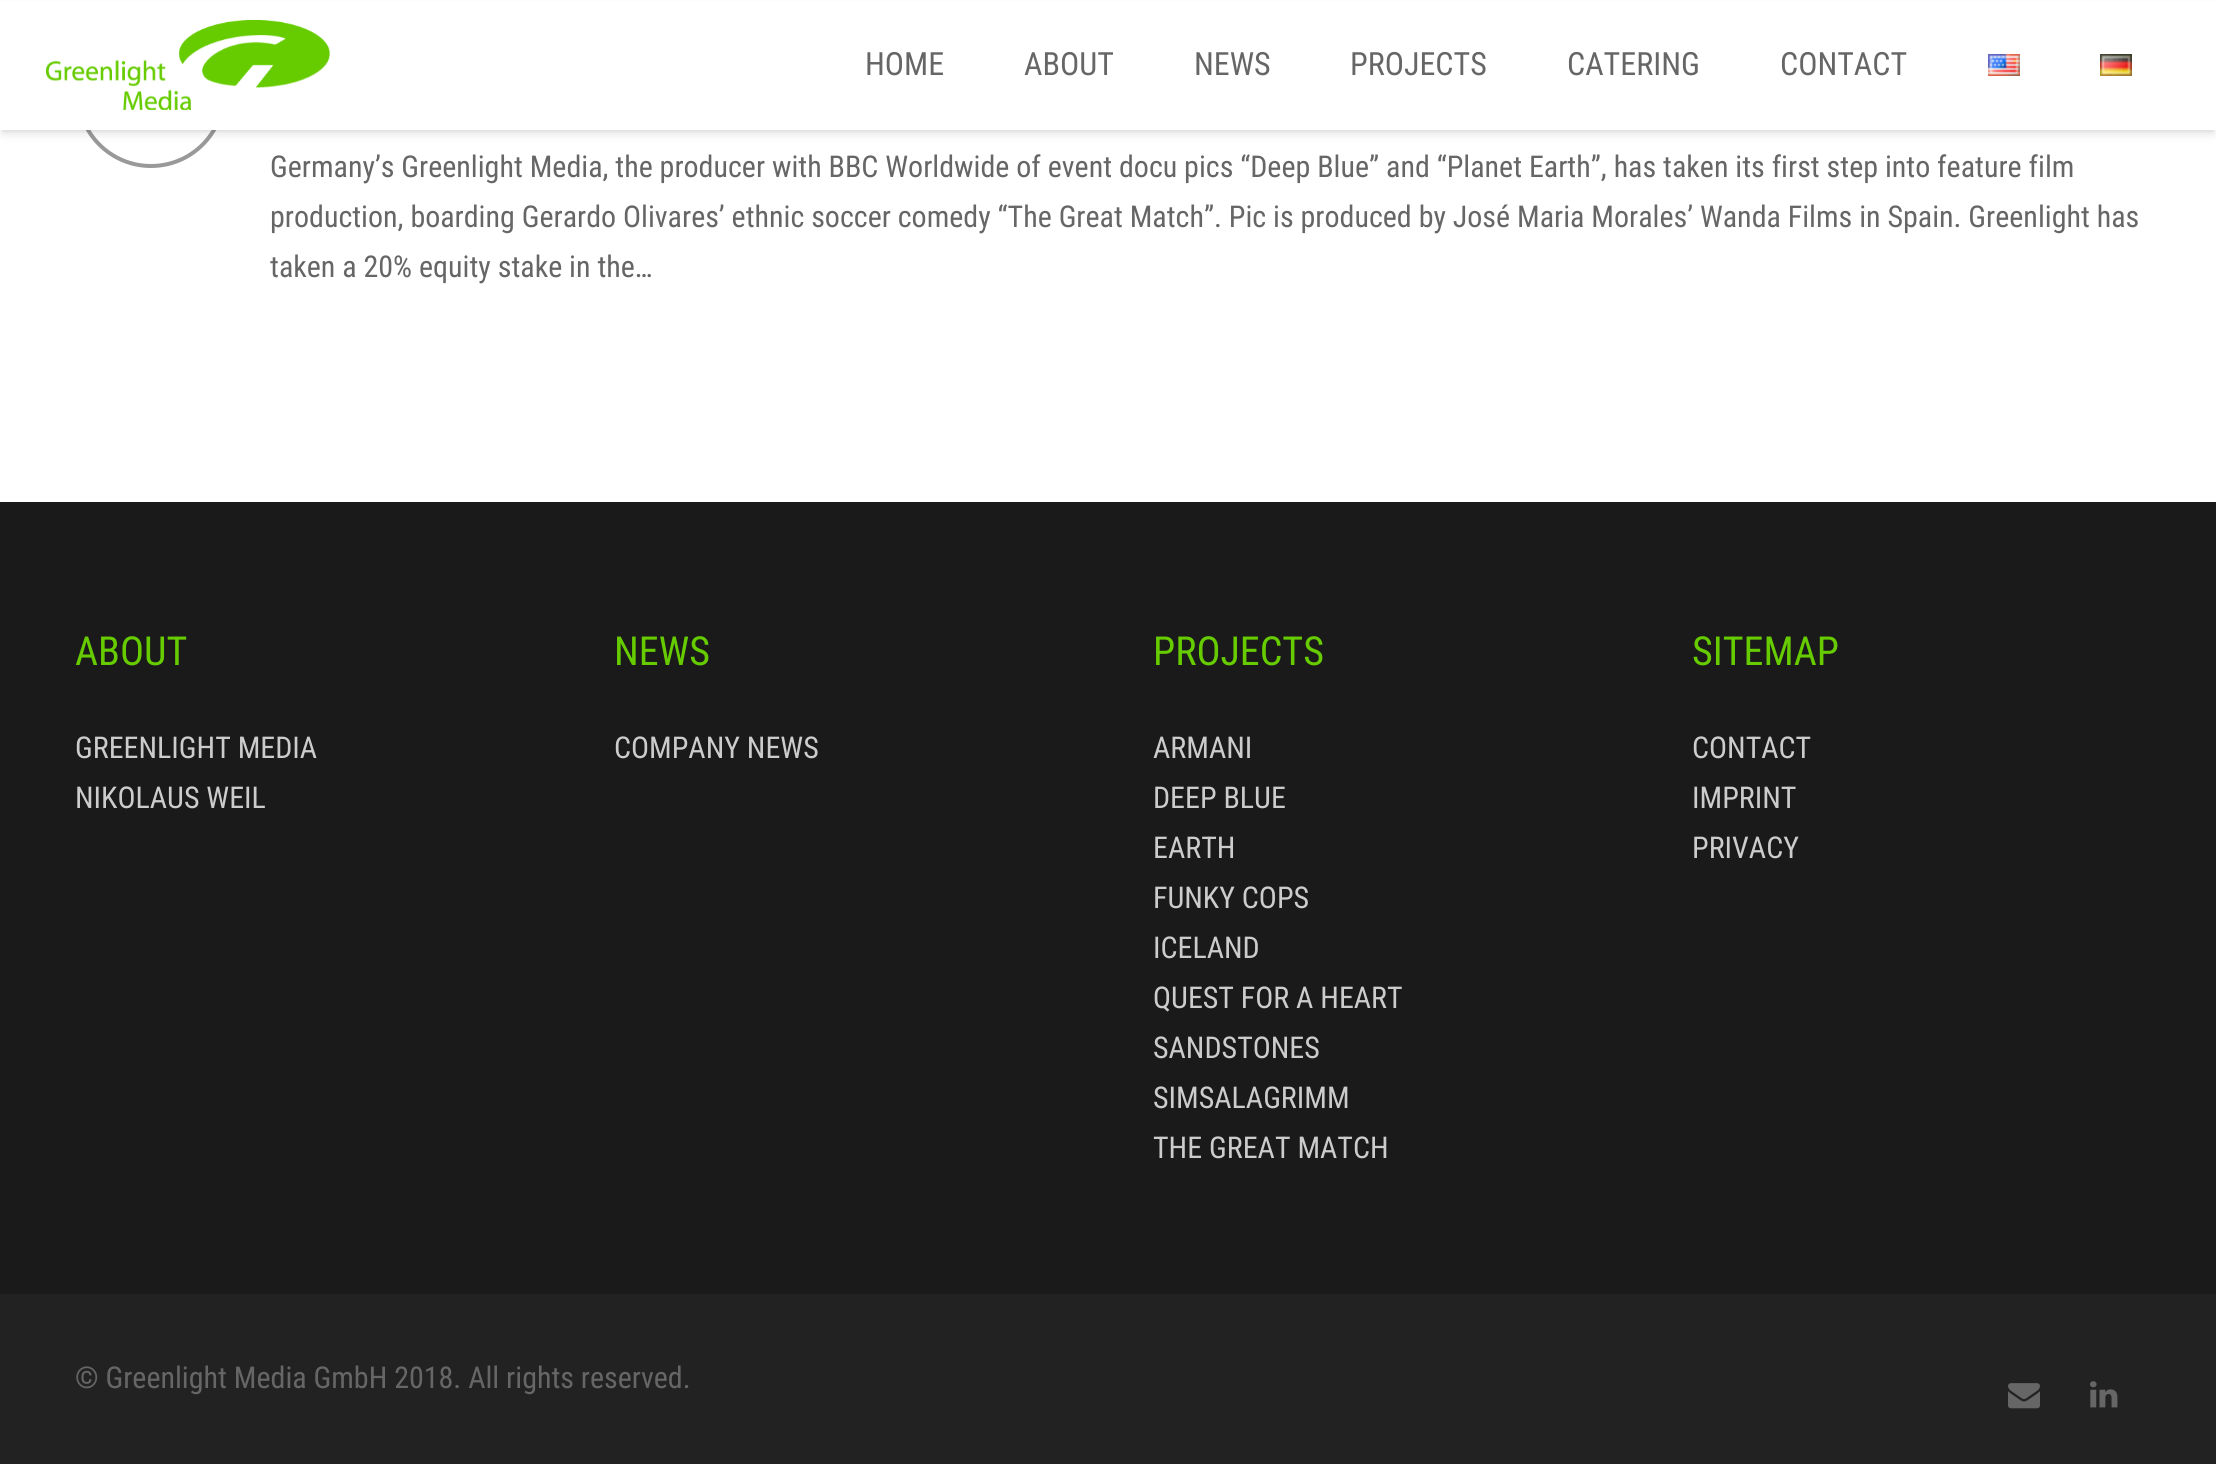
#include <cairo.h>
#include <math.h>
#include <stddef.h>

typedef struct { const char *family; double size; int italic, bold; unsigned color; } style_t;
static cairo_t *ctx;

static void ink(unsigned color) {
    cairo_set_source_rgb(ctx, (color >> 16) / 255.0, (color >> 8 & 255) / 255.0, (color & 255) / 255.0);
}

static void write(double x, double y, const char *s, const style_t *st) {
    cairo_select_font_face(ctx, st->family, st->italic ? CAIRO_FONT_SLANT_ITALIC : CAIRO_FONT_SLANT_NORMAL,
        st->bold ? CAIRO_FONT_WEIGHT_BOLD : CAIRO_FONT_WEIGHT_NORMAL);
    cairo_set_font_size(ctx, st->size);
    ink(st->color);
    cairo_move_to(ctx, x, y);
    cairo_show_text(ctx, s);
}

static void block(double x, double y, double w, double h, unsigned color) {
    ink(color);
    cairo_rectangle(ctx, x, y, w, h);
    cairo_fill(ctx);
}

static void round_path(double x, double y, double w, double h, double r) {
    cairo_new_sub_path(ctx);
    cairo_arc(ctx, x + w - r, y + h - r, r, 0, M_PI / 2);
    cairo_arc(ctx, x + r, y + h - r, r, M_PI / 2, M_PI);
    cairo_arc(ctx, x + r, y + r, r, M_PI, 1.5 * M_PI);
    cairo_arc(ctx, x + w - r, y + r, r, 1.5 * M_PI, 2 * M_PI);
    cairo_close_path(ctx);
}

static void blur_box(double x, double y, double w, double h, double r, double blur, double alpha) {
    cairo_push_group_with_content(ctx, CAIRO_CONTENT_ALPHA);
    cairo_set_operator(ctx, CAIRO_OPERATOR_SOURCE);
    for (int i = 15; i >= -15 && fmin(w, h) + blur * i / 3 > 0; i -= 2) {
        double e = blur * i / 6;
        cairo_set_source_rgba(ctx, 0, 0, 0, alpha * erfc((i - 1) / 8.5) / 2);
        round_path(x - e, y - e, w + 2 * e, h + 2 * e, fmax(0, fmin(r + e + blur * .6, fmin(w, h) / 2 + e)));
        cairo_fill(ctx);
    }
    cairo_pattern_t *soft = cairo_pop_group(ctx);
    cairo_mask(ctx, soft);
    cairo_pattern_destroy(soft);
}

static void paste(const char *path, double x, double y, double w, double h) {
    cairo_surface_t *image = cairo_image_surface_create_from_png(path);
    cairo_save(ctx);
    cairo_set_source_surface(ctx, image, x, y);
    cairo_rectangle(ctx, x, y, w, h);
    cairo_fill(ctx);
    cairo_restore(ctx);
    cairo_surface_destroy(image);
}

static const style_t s1 = {"Roboto Condensed", 32, 0, 0, 0x666666};
static const style_t s2 = {"Roboto Condensed", 30, 0, 0, 0x666666};
static const style_t s3 = {"Roboto Condensed", 40, 0, 0, 0x66cc00};
static const style_t s4 = {"Roboto Condensed", 30, 0, 0, 0xcccccc};

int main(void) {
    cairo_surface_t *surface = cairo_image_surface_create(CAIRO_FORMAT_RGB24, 2216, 1464);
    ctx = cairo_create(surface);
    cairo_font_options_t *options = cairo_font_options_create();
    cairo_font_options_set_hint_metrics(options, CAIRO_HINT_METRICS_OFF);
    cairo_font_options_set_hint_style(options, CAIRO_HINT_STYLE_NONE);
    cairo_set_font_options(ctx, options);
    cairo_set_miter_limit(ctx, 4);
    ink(0xffffff);
    cairo_paint(ctx);
    cairo_arc(ctx, 151, 93, 73, 0, 2 * M_PI);
    ink(0x999999);
    cairo_set_line_width(ctx, 4);
    cairo_stroke(ctx);
    ink(0x000000);
    blur_box(2, 6, 2212, 126, 0, 1, 0.05);
    blur_box(2, 8, 2212, 126, 0, 5, 0.1);
    block(0, 2, 2216, 128, 0xffffff);
    paste("pic1.png", 46, 20, 284, 90);
    write(865, 75, "HOME", &s1);
    write(1024, 75, "ABOUT", &s1);
    write(1194, 75, "NEWS", &s1);
    write(1350, 75, "PROJECTS", &s1);
    write(1567, 75, "CATERING", &s1);
    write(1780, 75, "CONTACT", &s1);
    paste("pic2.png", 1988, 54, 32, 22);
    paste("pic3.png", 2100, 54, 32, 22);
    write(270, 177, "Germany’s Greenlight Media, the producer with BBC Worldwide of event docu pics “Deep Blue” and “Planet Earth”, has taken its first step into feature film", &s2);
    write(270, 227, "production, boarding Gerardo Olivares’ ethnic soccer comedy “The Great Match”. Pic is produced by José Maria Morales’ Wanda Films in Spain. Greenlight has", &s2);
    write(270, 277, "taken a 20% equity stake in the…", &s2);
    block(0, 502, 2216, 792, 0x1a1a1a);
    write(75, 665, "ABOUT", &s3);
    write(75, 758, "GREENLIGHT MEDIA", &s4);
    write(75, 808, "NIKOLAUS WEIL", &s4);
    write(614, 665, "NEWS", &s3);
    write(614, 758, "COMPANY NEWS", &s4);
    write(1153, 665, "PROJECTS", &s3);
    write(1153, 758, "ARMANI", &s4);
    write(1153, 808, "DEEP BLUE", &s4);
    write(1153, 858, "EARTH", &s4);
    write(1153, 908, "FUNKY COPS", &s4);
    write(1153, 958, "ICELAND", &s4);
    write(1153, 1008, "QUEST FOR A HEART", &s4);
    write(1153, 1058, "SANDSTONES", &s4);
    write(1153, 1108, "SIMSALAGRIMM", &s4);
    write(1153, 1158, "THE GREAT MATCH", &s4);
    write(1692, 665, "SITEMAP", &s3);
    write(1692, 758, "CONTACT", &s4);
    write(1692, 808, "IMPRINT", &s4);
    write(1692, 858, "PRIVACY", &s4);
    block(0, 1294, 2216, 170, 0x222222);
    write(75, 1388, "© Greenlight Media GmbH 2018. All rights reserved.", &s2);
    paste("pic4.png", 2008, 1383, 32, 26);
    paste("pic5.png", 2090, 1381, 28, 27);
    cairo_surface_write_to_png(surface, "screenshot.png");
    cairo_font_options_destroy(options);
    cairo_destroy(ctx);
    cairo_surface_destroy(surface);
    return 0;
}
